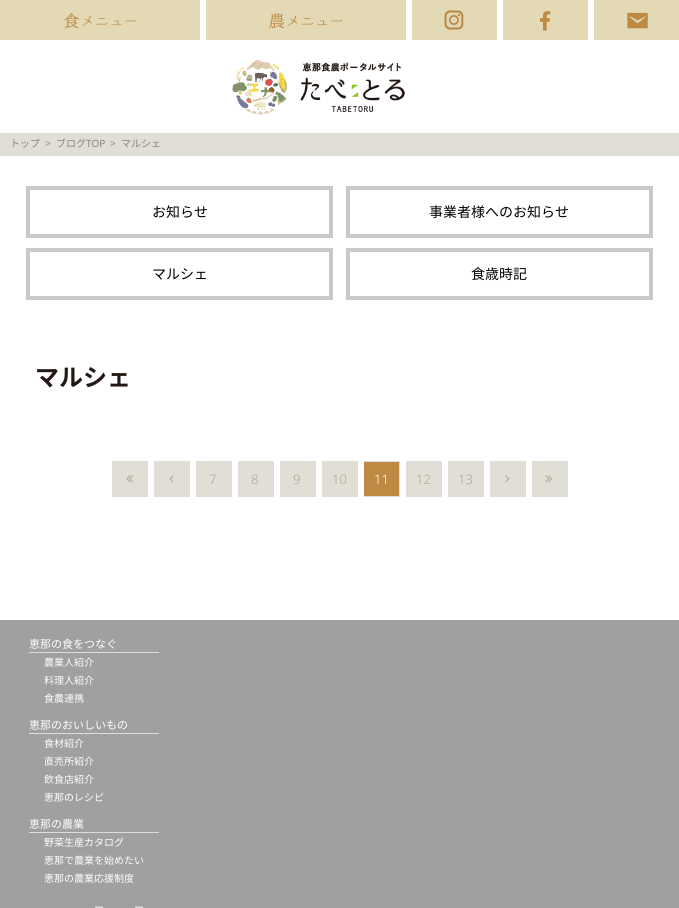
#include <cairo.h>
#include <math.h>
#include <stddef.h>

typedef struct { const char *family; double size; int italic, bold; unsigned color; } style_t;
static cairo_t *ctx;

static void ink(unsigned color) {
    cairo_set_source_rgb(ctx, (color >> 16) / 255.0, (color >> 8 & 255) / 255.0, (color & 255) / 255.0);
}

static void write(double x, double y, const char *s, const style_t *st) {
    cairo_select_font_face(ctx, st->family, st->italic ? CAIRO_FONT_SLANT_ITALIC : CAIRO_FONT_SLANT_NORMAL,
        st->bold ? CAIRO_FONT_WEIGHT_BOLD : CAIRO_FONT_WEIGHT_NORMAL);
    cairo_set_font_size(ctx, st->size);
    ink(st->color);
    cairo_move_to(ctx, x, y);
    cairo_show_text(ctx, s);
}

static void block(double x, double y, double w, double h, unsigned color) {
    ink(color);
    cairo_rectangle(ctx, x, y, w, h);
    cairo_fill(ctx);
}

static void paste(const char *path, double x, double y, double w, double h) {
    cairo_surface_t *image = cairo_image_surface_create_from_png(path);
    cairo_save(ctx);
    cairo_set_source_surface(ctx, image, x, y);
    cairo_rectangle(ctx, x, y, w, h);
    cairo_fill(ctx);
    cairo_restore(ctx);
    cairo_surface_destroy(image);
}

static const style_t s1 = {"Noto Sans CJK JP", 10, 0, 0, 0x868581};
static const style_t s2 = {"Noto Sans", 10, 0, 0, 0x868581};
static const style_t s3 = {"Noto Sans CJK JP", 14, 0, 0, 0x000000};
static const style_t s4 = {"Noto Sans CJK JP", 24, 0, 1, 0x231815};
static const style_t s5 = {"Noto Sans Light", 13, 0, 0, 0xaea596};
static const style_t s6 = {"Noto Sans Light", 13, 0, 0, 0xffffff};
static const style_t s7 = {"Noto Sans CJK JP", 11, 0, 0, 0xffffff};
static const style_t s8 = {"Noto Sans CJK JP", 10, 0, 0, 0xffffff};

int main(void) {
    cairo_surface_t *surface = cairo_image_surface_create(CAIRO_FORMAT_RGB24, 679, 908);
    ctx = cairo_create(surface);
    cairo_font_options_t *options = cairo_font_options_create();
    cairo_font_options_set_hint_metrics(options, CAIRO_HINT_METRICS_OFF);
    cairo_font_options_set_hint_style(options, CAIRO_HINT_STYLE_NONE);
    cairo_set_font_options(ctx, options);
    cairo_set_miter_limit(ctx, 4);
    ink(0xffffff);
    cairo_paint(ctx);
    block(0, 0, 200, 40, 0xe3dab5);
    paste("pic1.png", 63, 13, 74, 16);
    block(206, 0, 200, 40, 0xe3dab5);
    paste("pic2.png", 269, 13, 73, 16);
    block(412, 0, 85, 40, 0xe3dab5);
    paste("pic3.png", 444, 10, 20, 20);
    block(503, 0, 85, 40, 0xe3dab5);
    paste("pic4.png", 540, 11, 11, 20);
    block(594, 0, 85, 40, 0xe3dab5);
    paste("pic5.png", 627, 12, 21, 17);
    paste("pic6.png", 232, 59, 173, 56);
    block(0, 133, 679, 23, 0xe1ded5);
    write(10, 147, "トップ", &s1);
    write(45, 147, ">", &s2);
    write(56, 147, "ブログ", &s1);
    write(86, 147, "TOP", &s2);
    write(110, 147, ">", &s2);
    write(121, 147, "マルシェ", &s1);
    cairo_rectangle(ctx, 28, 188, 303, 48);
    ink(0xc9c9ca);
    cairo_set_line_width(ctx, 4);
    cairo_stroke(ctx);
    write(152, 217, "お知らせ", &s3);
    cairo_rectangle(ctx, 348, 188, 303, 48);
    ink(0xc9c9ca);
    cairo_stroke(ctx);
    write(429, 217, "事業者様へのお知らせ", &s3);
    cairo_rectangle(ctx, 28, 250, 303, 48);
    ink(0xc9c9ca);
    cairo_stroke(ctx);
    write(152, 279, "マルシェ", &s3);
    cairo_rectangle(ctx, 348, 250, 303, 48);
    ink(0xc9c9ca);
    cairo_stroke(ctx);
    write(471, 279, "食歳時記", &s3);
    write(35, 386, "マルシェ", &s4);
    ink(0xe1ded5);
    cairo_rectangle(ctx, 112.5, 461.5, 35, 35);
    cairo_fill_preserve(ctx);
    ink(0xdddddd);
    cairo_set_line_width(ctx, 1);
    cairo_stroke(ctx);
    paste("pic7.png", 126, 475, 8, 8);
    block(154, 462, 35, 34, 0xe1ded5);
    block(154, 461, 36, 1, 0xdddddd);
    block(189, 461, 1, 36, 0xdddddd);
    block(154, 496, 36, 1, 0xdddddd);
    paste("pic8.png", 169, 475, 5, 8);
    block(196, 462, 35, 34, 0xe1ded5);
    block(196, 461, 36, 1, 0xdddddd);
    block(231, 461, 1, 36, 0xdddddd);
    block(196, 496, 36, 1, 0xdddddd);
    write(209, 484, "7", &s5);
    block(238, 462, 35, 34, 0xe1ded5);
    block(238, 461, 36, 1, 0xdddddd);
    block(273, 461, 1, 36, 0xdddddd);
    block(238, 496, 36, 1, 0xdddddd);
    write(251, 484, "8", &s5);
    block(280, 462, 35, 34, 0xe1ded5);
    block(280, 461, 36, 1, 0xdddddd);
    block(315, 461, 1, 36, 0xdddddd);
    block(280, 496, 36, 1, 0xdddddd);
    write(293, 484, "9", &s5);
    block(322, 462, 35, 34, 0xe1ded5);
    block(322, 461, 36, 1, 0xdddddd);
    block(357, 461, 1, 36, 0xdddddd);
    block(322, 496, 36, 1, 0xdddddd);
    write(332, 484, "10", &s5);
    block(364, 462, 35, 34, 0xbe8a43);
    block(364, 461, 36, 1, 0xdddddd);
    block(399, 461, 1, 36, 0xdddddd);
    block(364, 496, 36, 1, 0xdddddd);
    write(374, 484, "11", &s6);
    block(406, 462, 35, 34, 0xe1ded5);
    block(406, 461, 36, 1, 0xdddddd);
    block(441, 461, 1, 36, 0xdddddd);
    block(406, 496, 36, 1, 0xdddddd);
    write(416, 484, "12", &s5);
    block(448, 462, 35, 34, 0xe1ded5);
    block(448, 461, 36, 1, 0xdddddd);
    block(483, 461, 1, 36, 0xdddddd);
    block(448, 496, 36, 1, 0xdddddd);
    write(458, 484, "13", &s5);
    block(490, 462, 35, 34, 0xe1ded5);
    block(490, 461, 36, 1, 0xdddddd);
    block(525, 461, 1, 36, 0xdddddd);
    block(490, 496, 36, 1, 0xdddddd);
    paste("pic9.png", 505, 475, 5, 8);
    block(532, 462, 35, 34, 0xe1ded5);
    block(532, 461, 36, 1, 0xdddddd);
    block(567, 461, 1, 36, 0xdddddd);
    block(532, 496, 36, 1, 0xdddddd);
    paste("pic10.png", 545, 475, 7, 8);
    block(0, 620, 679, 288, 0x9fa0a0);
    block(29, 652, 130, 1, 0xdcdddd);
    write(29, 648, "恵那の食をつなぐ", &s7);
    write(44, 666, "農業人紹介", &s8);
    write(44, 684, "料理人紹介", &s8);
    write(44, 702, "食農連携", &s8);
    block(29, 733, 130, 1, 0xdcdddd);
    write(29, 729, "恵那のおいしいもの", &s7);
    write(44, 747, "食材紹介", &s8);
    write(44, 765, "直売所紹介", &s8);
    write(44, 783, "飲食店紹介", &s8);
    write(44, 801, "恵那のレシピ", &s8);
    block(29, 832, 130, 1, 0xdcdddd);
    write(29, 828, "恵那の農業", &s7);
    write(44, 846, "野菜生産カタログ", &s8);
    write(44, 864, "恵那で農業を始めたい", &s8);
    write(44, 882, "恵那の農業応援制度", &s8);
    write(94, 911, "ー", &s8);
    write(134, 911, "ー", &s8);
    cairo_surface_write_to_png(surface, "screenshot.png");
    cairo_font_options_destroy(options);
    cairo_destroy(ctx);
    cairo_surface_destroy(surface);
    return 0;
}
